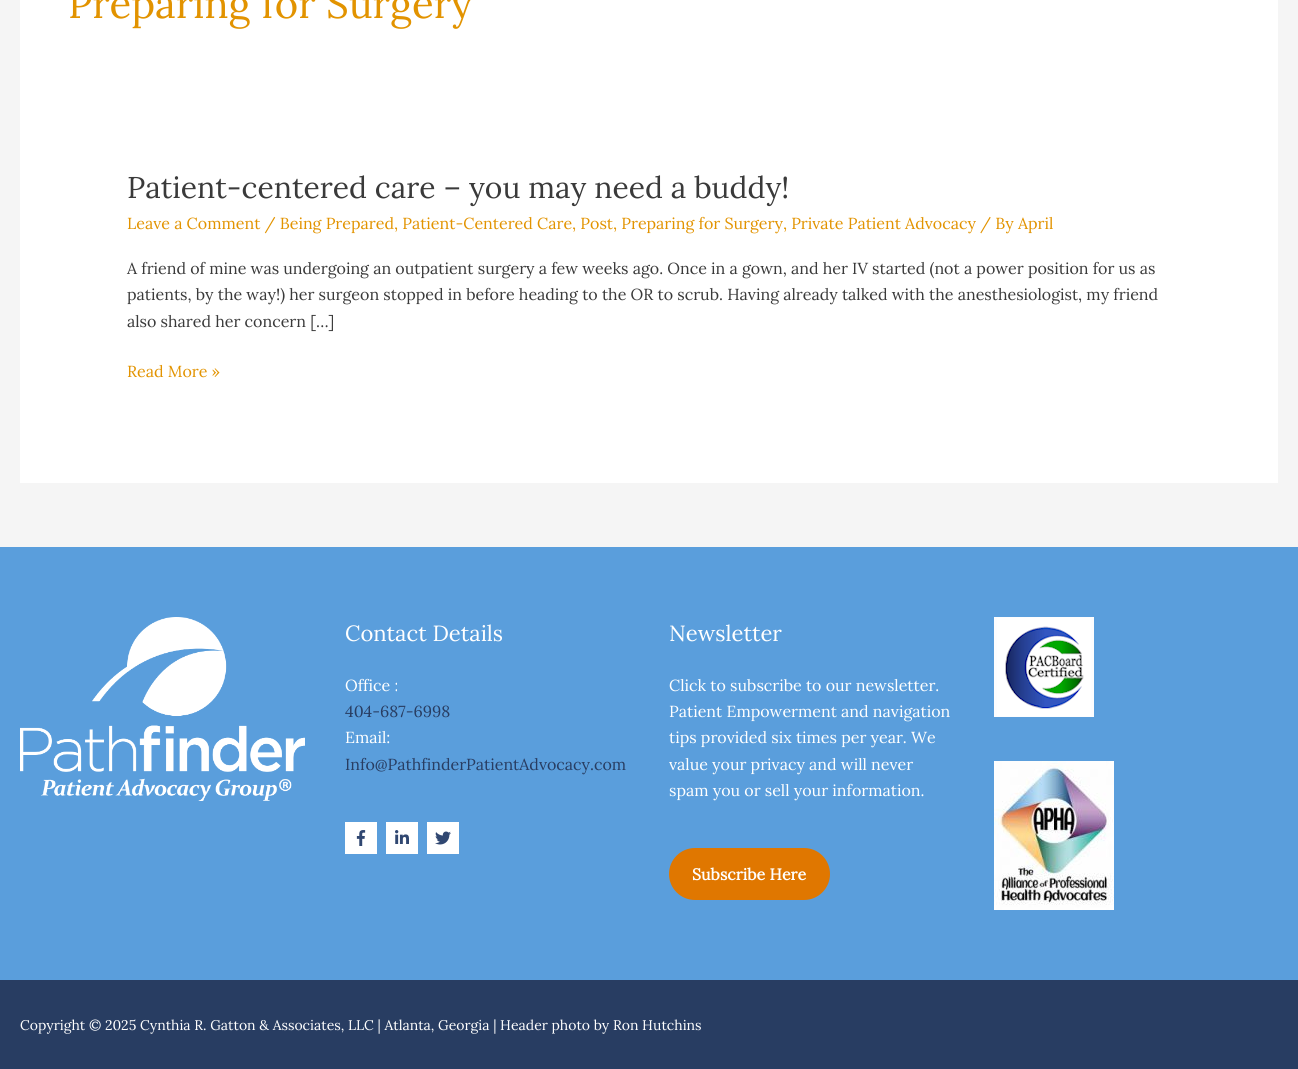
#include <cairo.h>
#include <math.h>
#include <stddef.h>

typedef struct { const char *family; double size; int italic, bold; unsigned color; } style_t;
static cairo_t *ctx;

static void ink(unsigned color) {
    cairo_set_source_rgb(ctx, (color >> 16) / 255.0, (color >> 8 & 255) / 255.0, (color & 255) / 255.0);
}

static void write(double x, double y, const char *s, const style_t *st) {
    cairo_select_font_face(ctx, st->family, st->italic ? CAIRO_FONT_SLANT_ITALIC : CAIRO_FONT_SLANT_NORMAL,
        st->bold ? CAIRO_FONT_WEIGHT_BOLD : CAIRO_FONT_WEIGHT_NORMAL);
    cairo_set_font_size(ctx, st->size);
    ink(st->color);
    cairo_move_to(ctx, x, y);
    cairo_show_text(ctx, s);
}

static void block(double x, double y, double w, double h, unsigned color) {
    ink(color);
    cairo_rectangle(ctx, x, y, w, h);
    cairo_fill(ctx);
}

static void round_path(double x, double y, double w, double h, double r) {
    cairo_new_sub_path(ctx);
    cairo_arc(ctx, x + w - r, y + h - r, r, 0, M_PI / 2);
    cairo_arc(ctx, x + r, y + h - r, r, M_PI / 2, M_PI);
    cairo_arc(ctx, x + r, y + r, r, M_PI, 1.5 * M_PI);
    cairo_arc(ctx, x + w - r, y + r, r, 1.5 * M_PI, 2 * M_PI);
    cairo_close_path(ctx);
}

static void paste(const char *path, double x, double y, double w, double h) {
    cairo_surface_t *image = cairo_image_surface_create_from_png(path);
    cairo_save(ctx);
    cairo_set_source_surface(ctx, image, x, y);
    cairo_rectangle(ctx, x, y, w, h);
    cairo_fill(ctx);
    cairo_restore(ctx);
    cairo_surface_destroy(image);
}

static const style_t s1 = {"Lora", 40, 0, 0, 0xe29300};
static const style_t s2 = {"Lora", 30, 0, 0, 0x3a3a3a};
static const style_t s3 = {"Lora", 16, 0, 0, 0xe29300};
static const style_t s4 = {"Lora", 16, 0, 0, 0x3a3a3a};
static const style_t s5 = {"Lora", 22, 0, 0, 0xffffff};
static const style_t s6 = {"Lora", 16, 0, 0, 0xffffff};
static const style_t s7 = {"Lora", 16, 0, 0, 0x283d62};
static const style_t s8 = {"Lora", 16, 0, 1, 0xffffff};
static const style_t s9 = {"Lora", 14, 0, 0, 0xffffff};

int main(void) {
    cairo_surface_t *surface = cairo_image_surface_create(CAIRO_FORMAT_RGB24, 1298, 1069);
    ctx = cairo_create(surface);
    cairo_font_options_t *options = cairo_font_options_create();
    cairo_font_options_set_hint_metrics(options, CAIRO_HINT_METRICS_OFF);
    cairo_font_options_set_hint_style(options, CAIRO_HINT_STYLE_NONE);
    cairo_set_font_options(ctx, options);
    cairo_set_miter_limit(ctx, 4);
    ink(0xf5f5f5);
    cairo_paint(ctx);
    block(20, 0, 1258, 483, 0xffffff);
    write(68, 18, "Preparing for Surgery", &s1);
    write(127, 198, "Patient-centered care – you may need a buddy!", &s2);
    write(127, 229, "Leave a Comment / Being Prepared, Patient-Centered Care, Post, Preparing for Surgery, Private Patient Advocacy / By April", &s3);
    write(127, 274, "A friend of mine was undergoing an outpatient surgery a few weeks ago. Once in a gown, and her IV started (not a power position for us as", &s4);
    write(127, 300, "patients, by the way!) her surgeon stopped in before heading to the OR to scrub. Having already talked with the anesthesiologist, my friend", &s4);
    write(127, 327, "also shared her concern […]", &s4);
    write(127, 377, "Read More »", &s3);
    block(0, 547, 1298, 433, 0x5a9edc);
    paste("pic1.png", 20, 617, 285, 184);
    write(345, 641, "Contact Details", &s5);
    write(345, 691, "Office :", &s6);
    write(345, 717, "404-687-6998", &s7);
    write(345, 743, "Email:", &s6);
    write(345, 770, "Info@PathfinderPatientAdvocacy.com", &s7);
    block(345, 822, 32, 32, 0xffffff);
    paste("pic2.png", 356, 830, 10, 16);
    block(386, 822, 32, 32, 0xffffff);
    paste("pic3.png", 395, 830, 14, 14);
    block(427, 822, 32, 32, 0xffffff);
    paste("pic4.png", 435, 831, 16, 14);
    write(669, 641, "Newsletter", &s5);
    write(669, 691, "Click to subscribe to our newsletter.", &s6);
    write(669, 717, "Patient Empowerment and navigation", &s6);
    write(669, 743, "tips provided six times per year. We", &s6);
    write(669, 770, "value your privacy and will never", &s6);
    write(669, 796, "spam you or sell your information.", &s6);
    ink(0xe07700);
    round_path(669, 848, 161, 52, 26);
    cairo_fill(ctx);
    write(692, 880, "Subscribe Here", &s8);
    paste("pic5.png", 994, 617, 100, 100);
    paste("pic6.png", 994, 761, 120, 149);
    block(0, 980, 1298, 89, 0x283d62);
    write(20, 1030, "Copyright © 2025 Cynthia R. Gatton & Associates, LLC | Atlanta, Georgia | Header photo by Ron Hutchins", &s9);
    cairo_surface_write_to_png(surface, "screenshot.png");
    cairo_font_options_destroy(options);
    cairo_destroy(ctx);
    cairo_surface_destroy(surface);
    return 0;
}
